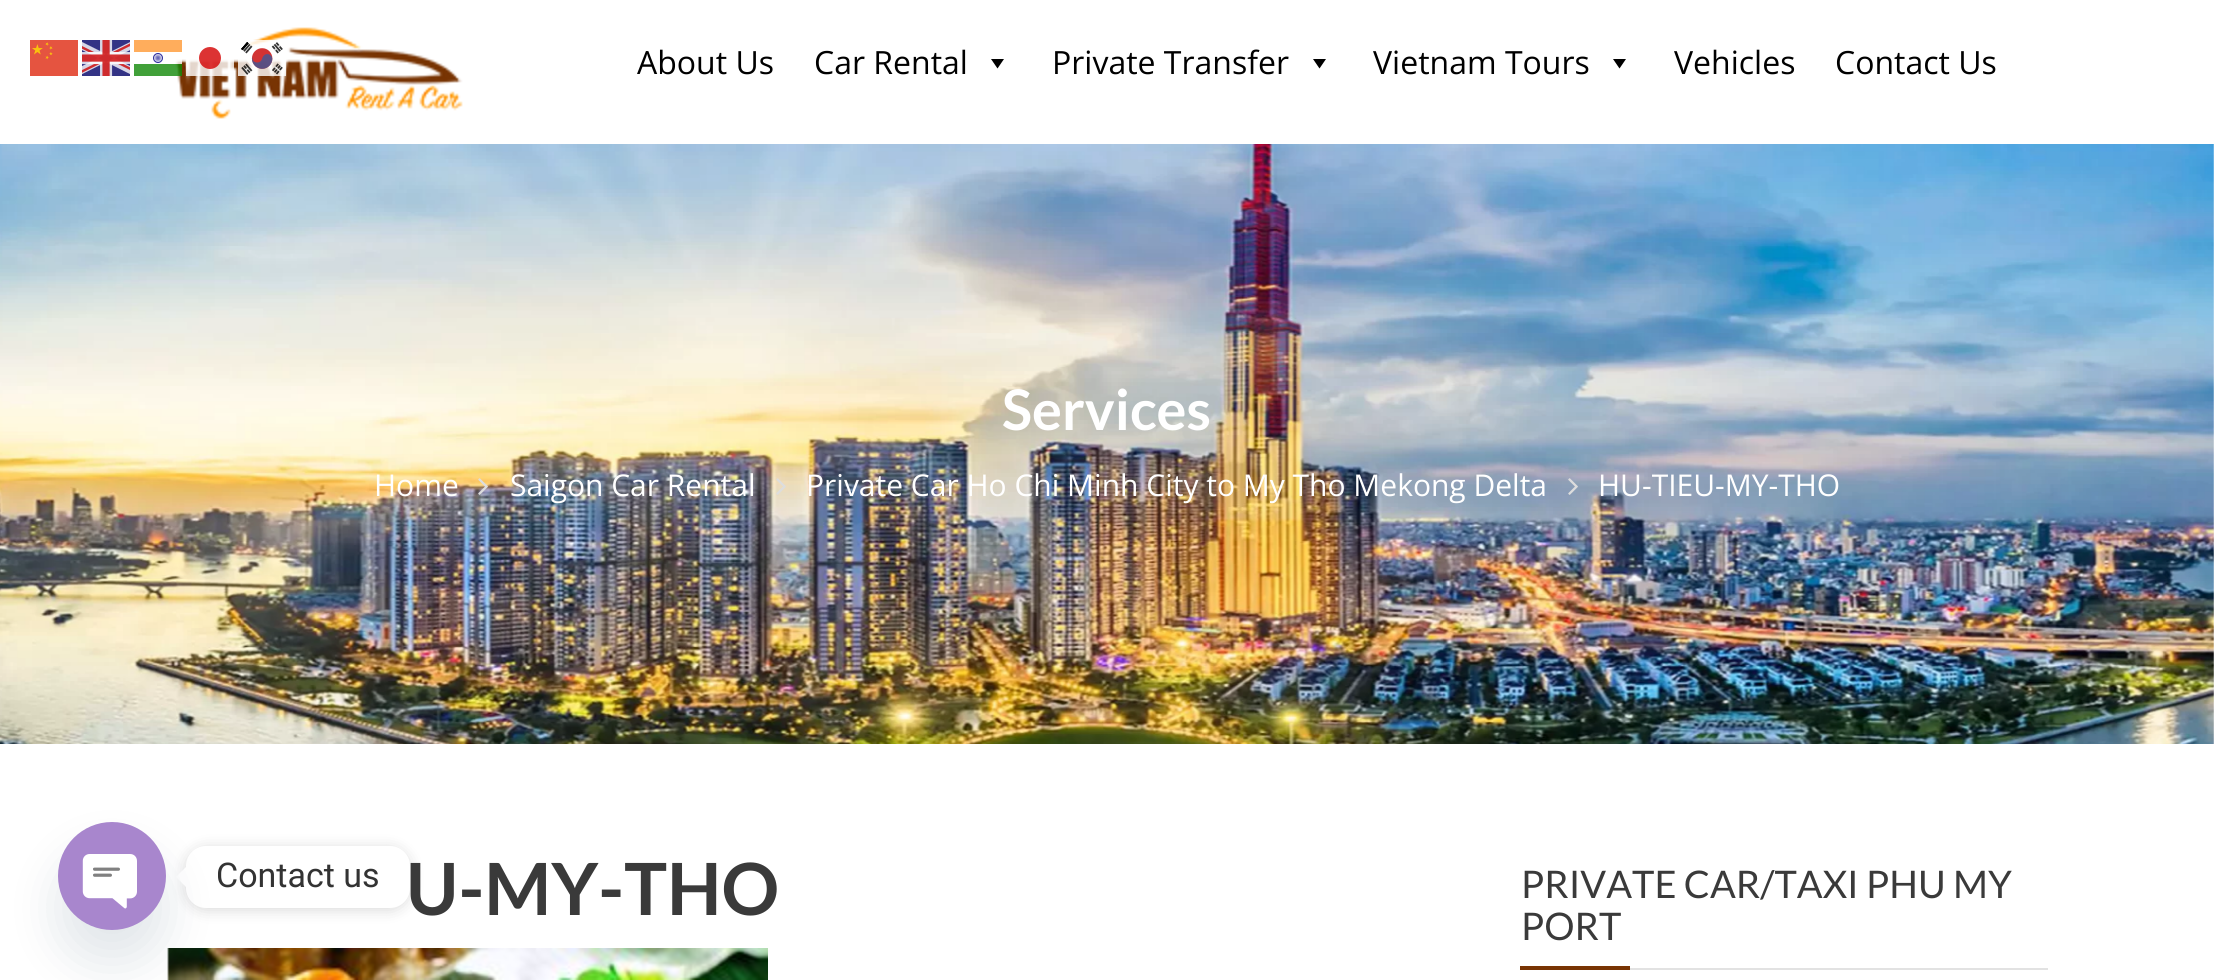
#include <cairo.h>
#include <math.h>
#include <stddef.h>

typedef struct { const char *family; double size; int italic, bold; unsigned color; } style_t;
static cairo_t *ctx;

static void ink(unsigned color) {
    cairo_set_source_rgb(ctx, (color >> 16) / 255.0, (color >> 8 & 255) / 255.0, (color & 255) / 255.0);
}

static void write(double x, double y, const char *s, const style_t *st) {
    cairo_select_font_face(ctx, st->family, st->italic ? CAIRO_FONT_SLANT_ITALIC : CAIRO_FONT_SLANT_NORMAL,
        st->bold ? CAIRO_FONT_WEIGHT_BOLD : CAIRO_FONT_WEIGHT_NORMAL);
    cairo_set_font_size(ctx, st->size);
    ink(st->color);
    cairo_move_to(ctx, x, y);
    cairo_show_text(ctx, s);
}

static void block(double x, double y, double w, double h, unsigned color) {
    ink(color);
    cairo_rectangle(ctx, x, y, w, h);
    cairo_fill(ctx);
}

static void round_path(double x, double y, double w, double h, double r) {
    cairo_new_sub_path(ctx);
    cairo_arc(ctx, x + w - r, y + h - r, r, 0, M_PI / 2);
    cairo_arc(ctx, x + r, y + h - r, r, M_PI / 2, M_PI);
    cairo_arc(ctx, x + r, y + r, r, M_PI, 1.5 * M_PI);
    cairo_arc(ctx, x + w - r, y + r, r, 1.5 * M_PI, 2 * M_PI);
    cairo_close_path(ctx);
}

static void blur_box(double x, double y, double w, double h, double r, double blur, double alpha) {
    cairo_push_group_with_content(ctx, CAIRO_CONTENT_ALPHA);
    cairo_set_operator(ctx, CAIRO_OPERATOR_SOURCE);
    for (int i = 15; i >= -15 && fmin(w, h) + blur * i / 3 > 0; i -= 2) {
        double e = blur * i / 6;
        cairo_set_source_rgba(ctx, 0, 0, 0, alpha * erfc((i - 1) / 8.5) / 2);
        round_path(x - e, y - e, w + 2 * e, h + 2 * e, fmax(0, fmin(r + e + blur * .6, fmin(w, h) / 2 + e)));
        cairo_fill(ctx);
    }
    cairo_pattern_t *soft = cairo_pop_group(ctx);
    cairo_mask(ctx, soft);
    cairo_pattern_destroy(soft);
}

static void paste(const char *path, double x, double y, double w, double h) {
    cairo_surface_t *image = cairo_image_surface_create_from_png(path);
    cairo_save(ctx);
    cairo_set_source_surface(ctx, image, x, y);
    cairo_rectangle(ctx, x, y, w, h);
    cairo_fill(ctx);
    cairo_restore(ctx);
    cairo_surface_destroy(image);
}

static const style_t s1 = {"Roboto", 34, 0, 0, 0x333333};
static const style_t s2 = {"Open Sans", 32, 0, 0, 0x000000};
static const style_t s3 = {"Lato", 56, 0, 1, 0xffffff};
static const style_t s4 = {"Open Sans", 30, 0, 0, 0xffffff};
static const style_t s5 = {"Lato", 72, 0, 1, 0x3a3a3a};
static const style_t s6 = {"Lato", 38, 0, 0, 0x3a3a3a};

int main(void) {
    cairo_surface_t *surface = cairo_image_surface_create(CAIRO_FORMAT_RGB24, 2214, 980);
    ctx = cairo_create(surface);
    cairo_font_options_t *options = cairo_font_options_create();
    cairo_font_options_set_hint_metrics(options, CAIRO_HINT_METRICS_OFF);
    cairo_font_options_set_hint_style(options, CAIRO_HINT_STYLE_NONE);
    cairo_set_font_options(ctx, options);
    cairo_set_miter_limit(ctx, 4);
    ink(0xffffff);
    cairo_paint(ctx);
    paste("pic1.png", 30, 40, 48, 36);
    paste("pic2.png", 82, 40, 48, 36);
    paste("pic6.png", 175, 27, 288, 92);
    paste("pic3.png", 134, 40, 48, 36);
    cairo_set_source_rgba(ctx, 1, 1, 1, 0.8);
    cairo_rectangle(ctx, 186, 59, 48, 17);
    cairo_fill(ctx);
    cairo_set_source_rgba(ctx, 0.827, 0, 0, 0.8);
    cairo_arc(ctx, 210, 58, 11, 0, 2 * M_PI);
    cairo_fill(ctx);
    paste("pic4.png", 238, 40, 48, 36);
    ink(0x000000);
    blur_box(186, 848, 224, 62, 20, 7.5, 0.15);
    ink(0xffffff);
    round_path(186, 846, 224, 62, 20);
    cairo_fill(ctx);
    cairo_new_path(ctx);
    cairo_move_to(ctx, 186, 867);
    cairo_line_to(ctx, 186, 887);
    cairo_line_to(ctx, 176, 877);
    cairo_close_path(ctx);
    cairo_fill(ctx);
    paste("pic11.png", 167, 948, 601, 32);
    ink(0x49687e);
    blur_box(58, 854, 108, 108, 54, 24, 0.16);
    paste("pic5.png", 58, 822, 108, 108);
    write(216, 887, "Contact us", &s1);
    write(637, 74, "About Us", &s2);
    write(814, 74, "Car Rental", &s2);
    cairo_new_path(ctx);
    cairo_move_to(ctx, 1004, 59);
    cairo_line_to(ctx, 997.5, 68.5);
    cairo_line_to(ctx, 991, 59);
    cairo_close_path(ctx);
    cairo_fill(ctx);
    write(1052, 74, "Private Transfer", &s2);
    cairo_new_path(ctx);
    cairo_move_to(ctx, 1326, 59);
    cairo_line_to(ctx, 1319.5, 68.5);
    cairo_line_to(ctx, 1313, 59);
    cairo_close_path(ctx);
    cairo_fill(ctx);
    write(1373, 74, "Vietnam Tours", &s2);
    cairo_new_path(ctx);
    cairo_move_to(ctx, 1626, 59);
    cairo_line_to(ctx, 1619.5, 68.5);
    cairo_line_to(ctx, 1613, 59);
    cairo_close_path(ctx);
    cairo_fill(ctx);
    write(1674, 74, "Vehicles", &s2);
    write(1835, 74, "Contact Us", &s2);
    paste("pic7.png", 0, 144, 2214, 600);
    write(1002, 430, "Services", &s3);
    write(374, 496, "Home", &s4);
    paste("pic8.png", 478, 478, 10, 17);
    write(510, 496, "Saigon Car Rental", &s4);
    paste("pic9.png", 776, 478, 10, 17);
    write(806, 496, "Private Car Ho Chi Minh City to My Tho Mekong Delta", &s4);
    paste("pic10.png", 1568, 478, 10, 17);
    write(1598, 496, "HU-TIEU-MY-THO", &s4);
    write(406, 915, "U-MY-THO", &s5);
    block(1630, 968, 418, 2, 0xe2e2e2);
    write(1521, 898, "PRIVATE CAR/TAXI PHU MY", &s6);
    write(1521, 940, "PORT", &s6);
    block(1520, 966, 110, 4, 0x783403);
    cairo_surface_write_to_png(surface, "screenshot.png");
    cairo_font_options_destroy(options);
    cairo_destroy(ctx);
    cairo_surface_destroy(surface);
    return 0;
}
